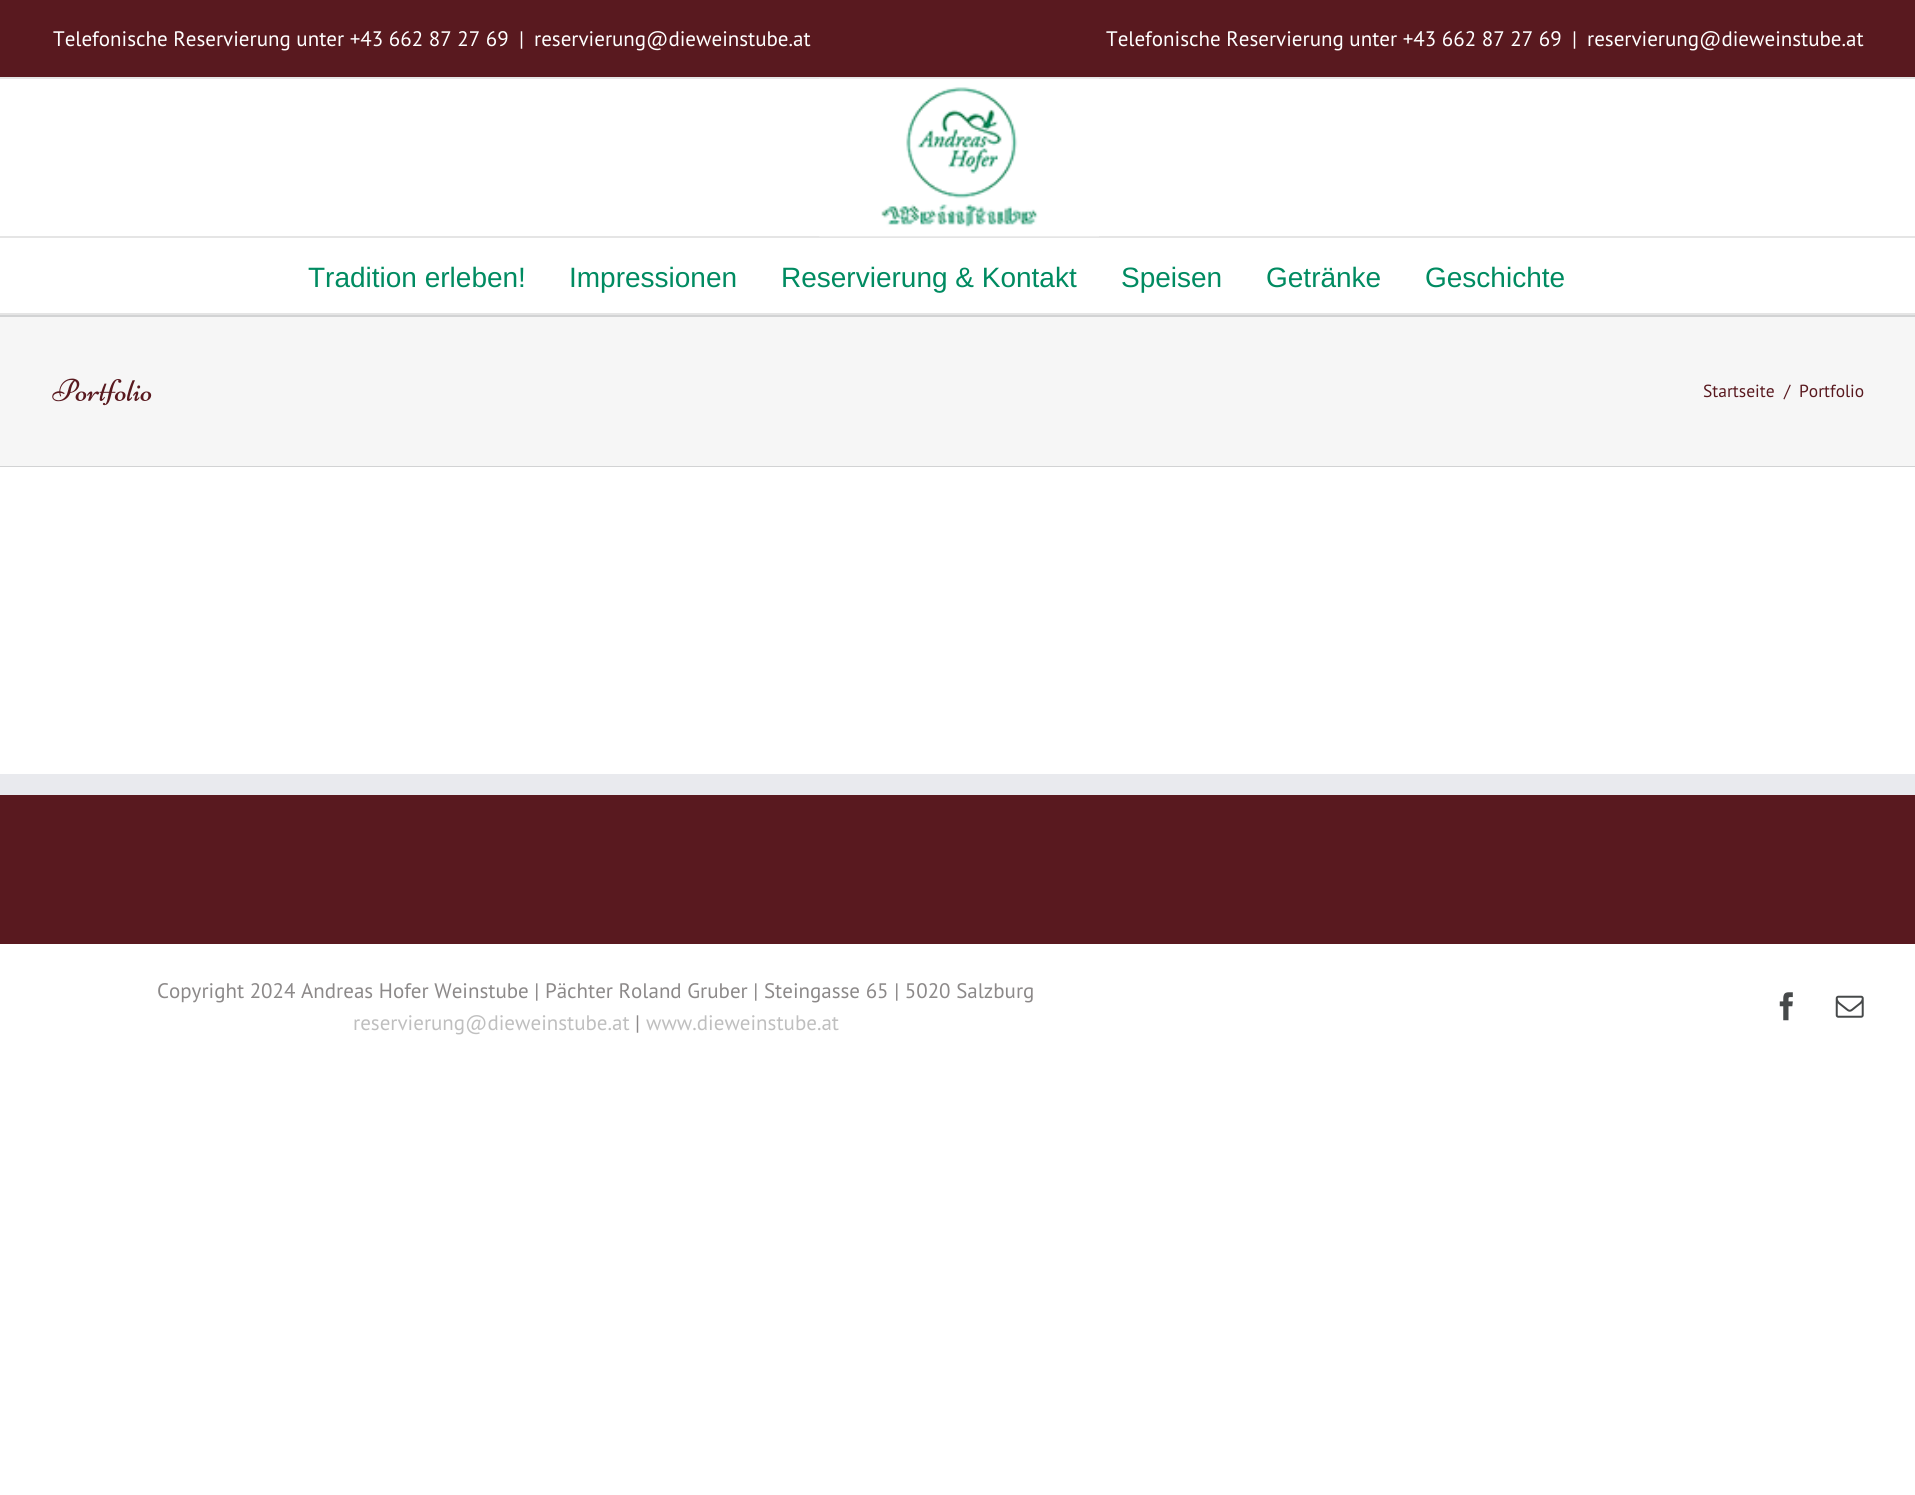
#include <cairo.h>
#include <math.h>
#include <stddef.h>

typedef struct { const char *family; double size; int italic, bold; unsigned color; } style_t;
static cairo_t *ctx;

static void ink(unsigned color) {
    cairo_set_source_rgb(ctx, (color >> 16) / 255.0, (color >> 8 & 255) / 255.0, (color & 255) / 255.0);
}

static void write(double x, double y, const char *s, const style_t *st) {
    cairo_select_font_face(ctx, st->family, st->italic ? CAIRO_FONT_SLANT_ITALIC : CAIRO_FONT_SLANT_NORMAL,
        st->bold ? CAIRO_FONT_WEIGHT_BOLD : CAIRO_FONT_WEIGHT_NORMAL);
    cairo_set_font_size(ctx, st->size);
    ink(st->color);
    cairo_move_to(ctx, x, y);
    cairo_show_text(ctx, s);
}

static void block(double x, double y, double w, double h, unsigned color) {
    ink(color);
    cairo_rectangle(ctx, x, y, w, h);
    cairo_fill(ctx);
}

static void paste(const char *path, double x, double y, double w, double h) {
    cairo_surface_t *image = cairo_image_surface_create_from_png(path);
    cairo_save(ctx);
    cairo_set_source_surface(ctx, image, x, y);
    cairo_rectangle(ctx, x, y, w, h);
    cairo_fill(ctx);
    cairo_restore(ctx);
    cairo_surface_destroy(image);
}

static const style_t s1 = {"PT Sans", 21, 0, 0, 0xffffff};
static const style_t s2 = {"Liberation Sans", 28, 0, 0, 0x008b61};
static const style_t s3 = {"PT Sans", 17.5, 0, 0, 0x59191f};
static const style_t s4 = {"PT Sans", 21, 0, 0, 0x8c8989};
static const style_t s5 = {"PT Sans", 21, 0, 0, 0xbfbfbf};

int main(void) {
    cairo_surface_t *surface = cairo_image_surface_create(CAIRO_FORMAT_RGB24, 1915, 1495);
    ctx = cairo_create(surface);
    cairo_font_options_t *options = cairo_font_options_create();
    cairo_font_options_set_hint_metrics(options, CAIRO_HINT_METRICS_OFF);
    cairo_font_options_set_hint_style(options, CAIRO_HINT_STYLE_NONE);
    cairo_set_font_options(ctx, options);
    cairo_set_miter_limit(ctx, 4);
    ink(0xffffff);
    cairo_paint(ctx);
    block(0, 0, 1915, 77, 0x59191f);
    block(0, 77, 1915, 2, 0xe5e5e5);
    write(53, 46, "Telefonische Reservierung unter +43 662 87 27 69", &s1);
    write(519, 46, "|", &s1);
    write(534, 46, "reservierung@dieweinstube.at", &s1);
    write(1106, 46, "Telefonische Reservierung unter +43 662 87 27 69", &s1);
    write(1572, 46, "|", &s1);
    write(1587, 46, "reservierung@dieweinstube.at", &s1);
    block(0, 236, 1915, 2, 0xe5e5e5);
    paste("pic1.png", 819, 78, 280, 159);
    block(0, 313, 1915, 2, 0xe5e5e5);
    write(308, 287, "Tradition erleben!", &s2);
    write(569, 287, "Impressionen", &s2);
    write(781, 287, "Reservierung & Kontakt", &s2);
    write(1121, 287, "Speisen", &s2);
    write(1266, 287, "Getränke", &s2);
    write(1425, 287, "Geschichte", &s2);
    block(0, 317, 1915, 149, 0xf6f6f6);
    block(0, 315, 1915, 2, 0xd2d3d4);
    block(0, 466, 1915, 1, 0xd2d3d4);
    paste("pic2.png", 52, 378, 100, 28);
    write(1703, 397, "Startseite", &s3);
    write(1784, 397, "/", &s3);
    write(1799, 397, "Portfolio", &s3);
    block(0, 795, 1915, 149, 0x59191f);
    block(0, 774, 1915, 21, 0xe9eaee);
    write(157, 998, "Copyright 2024 Andreas Hofer Weinstube | Pächter Roland Gruber | Steingasse 65 | 5020 Salzburg", &s4);
    write(353, 1030, "reservierung@dieweinstube.at", &s5);
    write(635, 1030, "|", &s4);
    write(646, 1030, "www.dieweinstube.at", &s5);
    paste("pic3.png", 1779, 992, 14, 29);
    paste("pic4.png", 1835, 995, 29, 23);
    cairo_surface_write_to_png(surface, "screenshot.png");
    cairo_font_options_destroy(options);
    cairo_destroy(ctx);
    cairo_surface_destroy(surface);
    return 0;
}
